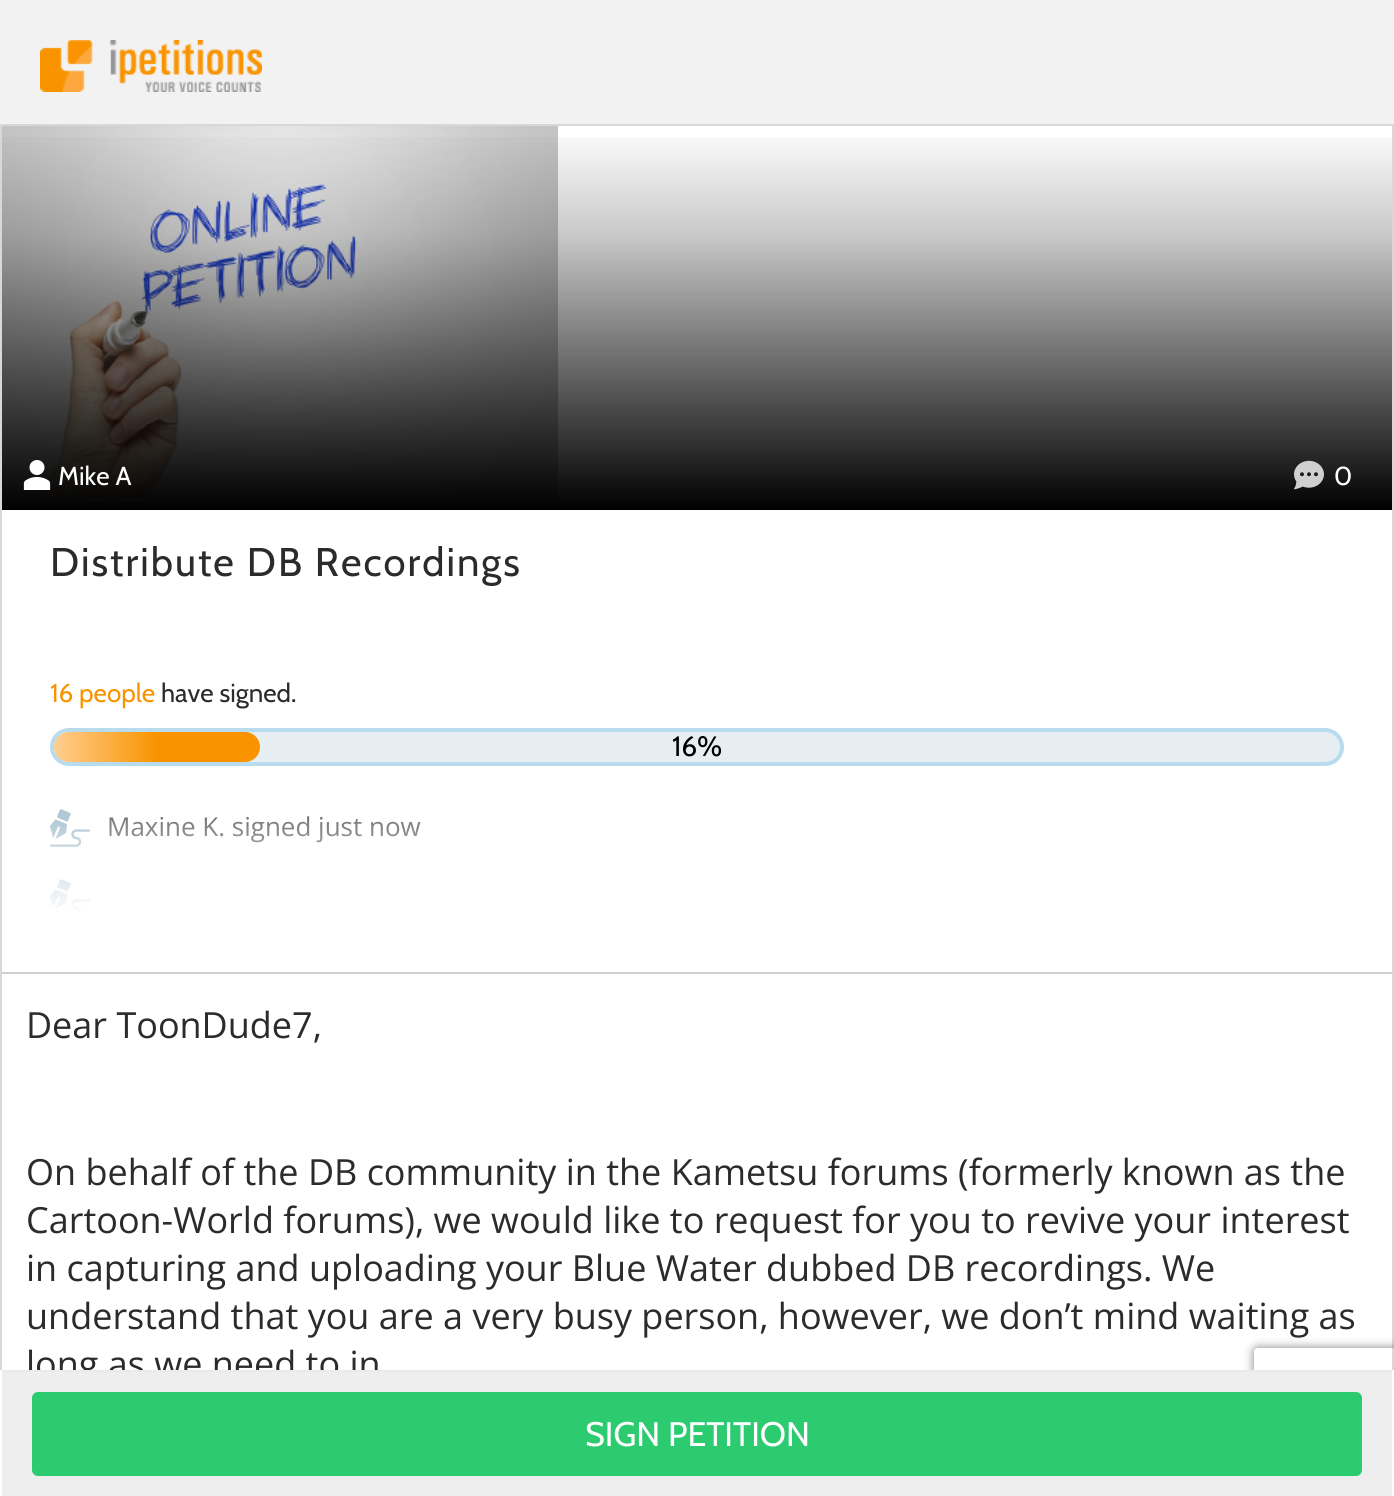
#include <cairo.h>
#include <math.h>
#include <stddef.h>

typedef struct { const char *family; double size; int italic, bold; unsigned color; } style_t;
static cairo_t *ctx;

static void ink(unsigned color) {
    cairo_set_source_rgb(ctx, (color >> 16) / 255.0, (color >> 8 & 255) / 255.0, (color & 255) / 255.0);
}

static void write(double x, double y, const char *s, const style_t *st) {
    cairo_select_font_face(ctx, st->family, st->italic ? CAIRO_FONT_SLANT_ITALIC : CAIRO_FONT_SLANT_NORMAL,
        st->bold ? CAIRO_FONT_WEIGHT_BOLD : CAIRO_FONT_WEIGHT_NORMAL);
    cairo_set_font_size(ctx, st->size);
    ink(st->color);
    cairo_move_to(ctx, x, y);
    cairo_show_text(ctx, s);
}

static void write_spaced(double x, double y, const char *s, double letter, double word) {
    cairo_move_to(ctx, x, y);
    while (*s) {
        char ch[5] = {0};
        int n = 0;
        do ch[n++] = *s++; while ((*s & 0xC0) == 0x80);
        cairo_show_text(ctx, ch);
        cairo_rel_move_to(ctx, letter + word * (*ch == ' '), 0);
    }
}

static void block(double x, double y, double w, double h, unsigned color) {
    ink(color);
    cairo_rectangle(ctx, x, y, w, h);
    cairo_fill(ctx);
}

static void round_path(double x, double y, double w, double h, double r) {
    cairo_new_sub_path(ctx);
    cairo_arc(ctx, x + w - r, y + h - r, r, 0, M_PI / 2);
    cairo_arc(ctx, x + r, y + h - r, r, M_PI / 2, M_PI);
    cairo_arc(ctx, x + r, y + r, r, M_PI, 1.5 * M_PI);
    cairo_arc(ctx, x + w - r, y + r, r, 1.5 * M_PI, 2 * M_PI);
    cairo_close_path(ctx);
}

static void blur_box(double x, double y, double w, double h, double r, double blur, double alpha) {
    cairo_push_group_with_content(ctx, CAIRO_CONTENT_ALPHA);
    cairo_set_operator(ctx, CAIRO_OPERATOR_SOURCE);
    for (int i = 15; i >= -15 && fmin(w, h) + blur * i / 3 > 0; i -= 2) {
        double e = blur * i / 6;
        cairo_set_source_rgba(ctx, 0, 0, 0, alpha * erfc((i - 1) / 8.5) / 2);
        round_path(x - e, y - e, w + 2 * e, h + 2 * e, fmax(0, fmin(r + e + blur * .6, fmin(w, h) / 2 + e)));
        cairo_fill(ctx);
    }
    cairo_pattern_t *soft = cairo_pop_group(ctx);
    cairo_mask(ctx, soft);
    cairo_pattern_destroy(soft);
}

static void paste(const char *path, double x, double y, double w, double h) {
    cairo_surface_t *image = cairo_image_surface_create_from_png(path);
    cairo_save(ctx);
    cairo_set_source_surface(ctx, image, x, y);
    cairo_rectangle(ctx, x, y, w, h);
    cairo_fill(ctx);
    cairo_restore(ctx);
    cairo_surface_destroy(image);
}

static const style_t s1 = {"Cabin", 26, 0, 0, 0xffffff};
static const style_t s2 = {"Cabin", 26, 0, 0, 0xf99400};
static const style_t s3 = {"Cabin", 26, 0, 0, 0x2b2b2b};
static const style_t s4 = {"Cabin", 28, 0, 0, 0x000000};
static const style_t s5 = {"Open Sans", 26, 0, 0, 0x787878};
static const style_t s6 = {"Open Sans", 36, 0, 0, 0x2b2b2b};
static const style_t s7 = {"Cabin", 34, 0, 0, 0xffffff};

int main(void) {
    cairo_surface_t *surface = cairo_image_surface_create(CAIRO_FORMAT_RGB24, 1394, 1496);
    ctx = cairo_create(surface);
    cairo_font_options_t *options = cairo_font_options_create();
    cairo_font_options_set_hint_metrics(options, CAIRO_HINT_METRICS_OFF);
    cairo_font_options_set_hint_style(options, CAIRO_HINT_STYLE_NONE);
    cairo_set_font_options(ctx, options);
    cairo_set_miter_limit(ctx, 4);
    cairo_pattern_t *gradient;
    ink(0xf2f2f2);
    cairo_paint(ctx);
    paste("pic1.png", 40, 40, 222, 52);
    block(2, 126, 1390, 1244, 0xffffff);
    cairo_rectangle(ctx, 1, 125, 1392, 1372);
    ink(0xd8d8d8);
    cairo_stroke(ctx);
    paste("pic2.png", 2, 126, 556, 372);
    gradient = cairo_pattern_create_linear(697, 126, 697, 510);
    cairo_pattern_add_color_stop_rgba(gradient, 0, 0, 0, 0, 0);
    cairo_pattern_add_color_stop_rgba(gradient, 0.28, 0, 0, 0, 0.21);
    cairo_pattern_add_color_stop_rgba(gradient, 1, 0, 0, 0, 1);
    cairo_set_source(ctx, gradient);
    cairo_pattern_destroy(gradient);
    cairo_rectangle(ctx, 2, 137, 1390, 373);
    cairo_fill(ctx);
    paste("pic3.png", 23, 460, 28, 30);
    write(58, 485, "Mike A", &s1);
    paste("pic4.png", 1294, 460, 30, 30);
    write(1334, 485, "0", &s1);
    cairo_set_font_size(ctx, 40);
    ink(0x2b2b2b);
    write_spaced(50, 576, "Distribute DB Recordings", 2, 0);
    block(2, 972, 1390, 2, 0xd0d0d0);
    write(50, 702, "16 people", &s2);
    write(161, 702, "have signed.", &s3);
    ink(0xe6eef2);
    round_path(52, 730, 1290, 34, 17);
    cairo_fill_preserve(ctx);
    ink(0xb8dcee);
    cairo_set_line_width(ctx, 4);
    cairo_stroke(ctx);
    gradient = cairo_pattern_create_linear(54, 747, 260, 747);
    cairo_pattern_add_color_stop_rgba(gradient, 0, 1, 0.808, 0.565, 1);
    cairo_pattern_add_color_stop_rgba(gradient, 0.5, 0.976, 0.58, 0, 1);
    cairo_set_source(ctx, gradient);
    cairo_pattern_destroy(gradient);
    round_path(54, 732, 206, 30, 15);
    cairo_fill(ctx);
    write(672, 756, "16%", &s4);
    paste("pic5.png", 50, 809, 40, 38);
    write(107, 836, "Maxine K. signed just now", &s5);
    paste("pic6.png", 50, 879, 40, 33);
    gradient = cairo_pattern_create_linear(697, 818, 697, 918);
    cairo_pattern_add_color_stop_rgba(gradient, 0, 1, 1, 1, 0);
    cairo_pattern_add_color_stop_rgba(gradient, 1, 1, 1, 1, 1);
    cairo_set_source(ctx, gradient);
    cairo_pattern_destroy(gradient);
    cairo_rectangle(ctx, 50, 820, 370, 92);
    cairo_fill(ctx);
    write(26, 1377, "long as we need to in", &s6);
    cairo_save(ctx);
    cairo_set_fill_rule(ctx, CAIRO_FILL_RULE_EVEN_ODD);
    cairo_new_path(ctx);
    cairo_move_to(ctx, 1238, 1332);
    cairo_line_to(ctx, 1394, 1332);
    cairo_line_to(ctx, 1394, 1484);
    cairo_line_to(ctx, 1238, 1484);
    cairo_close_path(ctx);
    cairo_move_to(ctx, 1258, 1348);
    cairo_line_to(ctx, 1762, 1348);
    cairo_curve_to(ctx, 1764, 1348, 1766, 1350, 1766, 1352);
    cairo_line_to(ctx, 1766, 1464);
    cairo_curve_to(ctx, 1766, 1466, 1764, 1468, 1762, 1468);
    cairo_line_to(ctx, 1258, 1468);
    cairo_curve_to(ctx, 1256, 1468, 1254, 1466, 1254, 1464);
    cairo_line_to(ctx, 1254, 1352);
    cairo_curve_to(ctx, 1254, 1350, 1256, 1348, 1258, 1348);
    cairo_close_path(ctx);
    cairo_clip(ctx);
    ink(0x808080);
    blur_box(1254, 1348, 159, 120, 4, 5, 1);
    cairo_restore(ctx);
    block(2, 1372, 1390, 124, 0xeeeeee);
    block(0, 1370, 1394, 2, 0xeaeaea);
    block(1392, 1370, 2, 126, 0xffffff);
    block(0, 1370, 2, 126, 0xffffff);
    ink(0x2ccb6f);
    round_path(32, 1392, 1330, 84, 6);
    cairo_fill(ctx);
    write(585, 1446, "SIGN PETITION", &s7);
    write(26, 1038, "Dear ToonDude7,", &s6);
    write(26, 1185, "On behalf of the DB community in the Kametsu forums (formerly known as the", &s6);
    write(26, 1233, "Cartoon-World forums), we would like to request for you to revive your interest", &s6);
    write(26, 1281, "in capturing and uploading your Blue Water dubbed DB recordings. We", &s6);
    write(26, 1329, "understand that you are a very busy person, however, we don’t mind waiting as", &s6);
    cairo_surface_write_to_png(surface, "screenshot.png");
    cairo_font_options_destroy(options);
    cairo_destroy(ctx);
    cairo_surface_destroy(surface);
    return 0;
}
